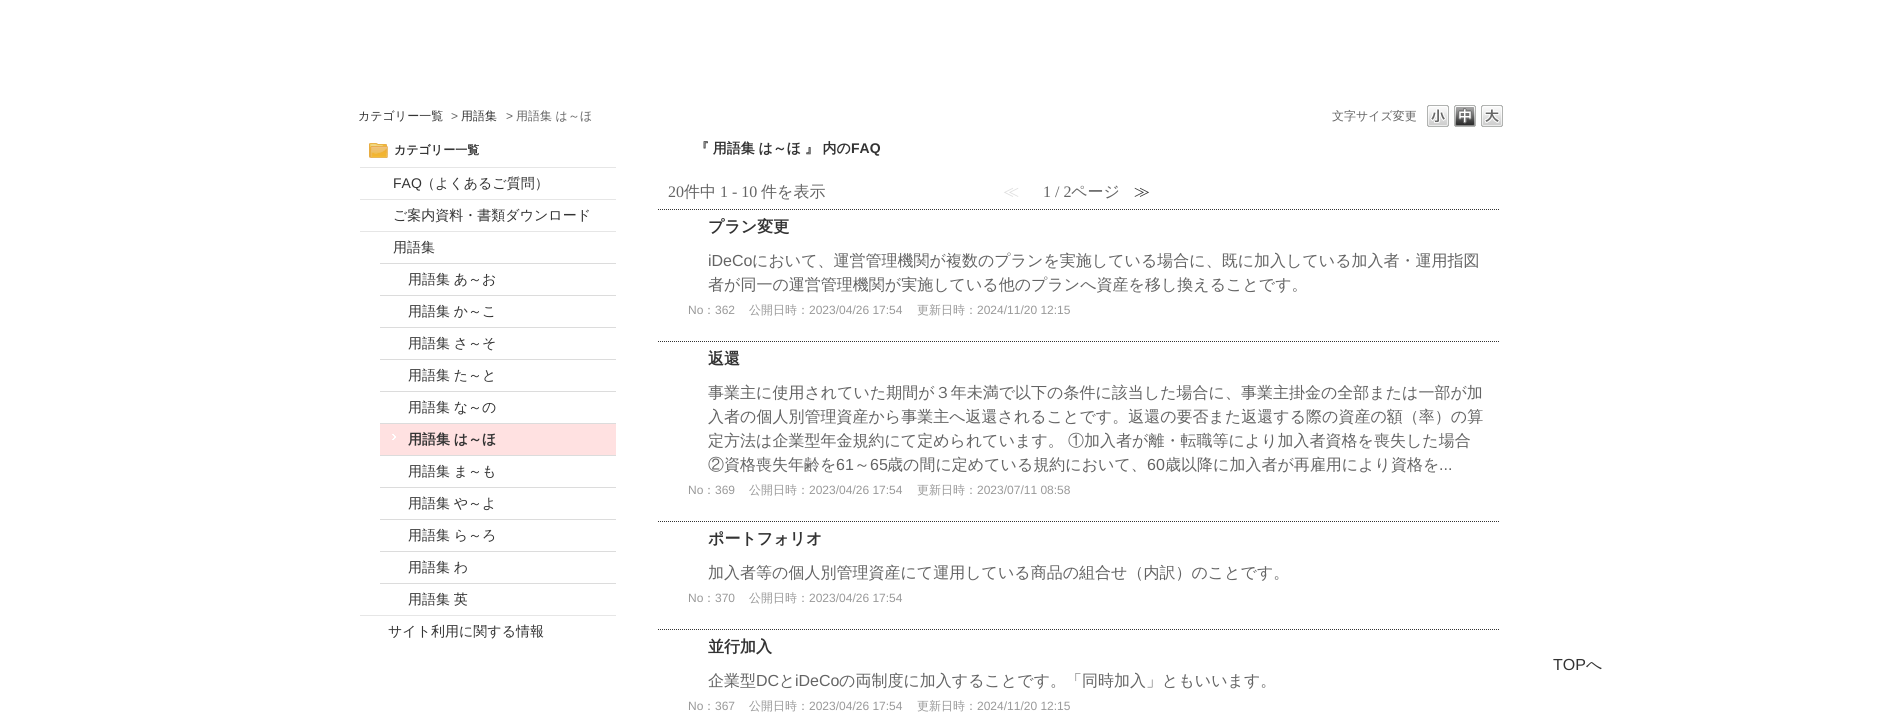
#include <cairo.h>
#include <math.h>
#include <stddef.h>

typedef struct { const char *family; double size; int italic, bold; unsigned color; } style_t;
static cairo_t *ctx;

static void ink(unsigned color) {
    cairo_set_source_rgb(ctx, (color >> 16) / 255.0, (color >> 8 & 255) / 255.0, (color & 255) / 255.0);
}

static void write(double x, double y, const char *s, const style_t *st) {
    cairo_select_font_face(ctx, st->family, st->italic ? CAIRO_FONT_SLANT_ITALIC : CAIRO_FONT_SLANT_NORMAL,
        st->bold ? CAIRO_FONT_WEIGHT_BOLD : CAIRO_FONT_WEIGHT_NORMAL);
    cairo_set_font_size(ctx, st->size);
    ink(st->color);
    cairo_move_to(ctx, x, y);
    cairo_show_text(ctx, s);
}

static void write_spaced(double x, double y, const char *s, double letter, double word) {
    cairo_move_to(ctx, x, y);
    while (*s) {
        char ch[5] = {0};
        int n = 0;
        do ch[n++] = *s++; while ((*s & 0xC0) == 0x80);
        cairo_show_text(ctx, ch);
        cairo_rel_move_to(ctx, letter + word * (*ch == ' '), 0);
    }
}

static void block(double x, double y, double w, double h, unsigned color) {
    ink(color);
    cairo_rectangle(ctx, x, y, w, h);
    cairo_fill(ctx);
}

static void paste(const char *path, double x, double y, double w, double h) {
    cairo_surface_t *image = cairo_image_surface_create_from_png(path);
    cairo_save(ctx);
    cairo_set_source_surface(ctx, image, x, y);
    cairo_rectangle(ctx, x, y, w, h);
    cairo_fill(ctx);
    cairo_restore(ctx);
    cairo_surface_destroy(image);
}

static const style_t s1 = {"WenQuanYi Zen Hei Medium", 12, 0, 0, 0x333333};
static const style_t s2 = {"Liberation Sans", 12, 0, 0, 0x646464};
static const style_t s3 = {"WenQuanYi Zen Hei Medium", 12, 0, 0, 0x646464};
static const style_t s4 = {"WenQuanYi Zen Hei", 12, 0, 1, 0x333333};
static const style_t s5 = {"Liberation Sans", 14, 0, 0, 0x333333};
static const style_t s6 = {"WenQuanYi Zen Hei Medium", 14, 0, 0, 0x333333};
static const style_t s7 = {"Liberation Sans", 14, 0, 1, 0x333333};
static const style_t s8 = {"Liberation Serif", 16, 0, 0, 0x646464};
static const style_t s9 = {"WenQuanYi Zen Hei Medium", 16, 0, 0, 0x646464};
static const style_t s10 = {"WenQuanYi Zen Hei Medium", 16, 0, 0, 0xdddddd};
static const style_t s11 = {"WenQuanYi Zen Hei Medium", 16, 0, 0, 0x333333};
static const style_t s12 = {"WenQuanYi Zen Hei", 16, 0, 1, 0x333333};
static const style_t s13 = {"Liberation Sans", 16, 0, 0, 0x646464};
static const style_t s14 = {"Liberation Sans", 12, 0, 0, 0x999999};
static const style_t s15 = {"WenQuanYi Zen Hei Medium", 12, 0, 0, 0x999999};
static const style_t s16 = {"Liberation Sans", 16, 0, 0, 0x333333};

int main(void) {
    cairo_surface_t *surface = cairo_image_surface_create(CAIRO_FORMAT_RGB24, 1880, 727);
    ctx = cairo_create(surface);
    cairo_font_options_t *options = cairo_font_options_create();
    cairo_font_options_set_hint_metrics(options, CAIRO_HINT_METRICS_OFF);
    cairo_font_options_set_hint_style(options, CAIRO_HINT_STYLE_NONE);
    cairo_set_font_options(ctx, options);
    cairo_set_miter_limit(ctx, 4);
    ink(0xffffff);
    cairo_paint(ctx);
    write(358, 120, "カテゴリー一覧", &s1);
    write(451, 120, ">", &s2);
    write(461, 120, "用語集", &s1);
    write(506, 120, ">", &s2);
    write(516, 120, "用語集 は～ほ", &s3);
    write(1332, 120, "文字サイズ変更", &s3);
    paste("pic1.png", 1427, 105, 22, 22);
    paste("pic2.png", 1454, 105, 22, 22);
    paste("pic3.png", 1481, 105, 22, 22);
    paste("pic4.png", 369, 143, 19, 15);
    write(394, 154, "カテゴリー一覧", &s4);
    block(360, 167, 256, 1, 0xe6e6e6);
    write(393, 188, "FAQ", &s5);
    write(421, 188, "（よくあるご質問）", &s6);
    block(360, 199, 256, 1, 0xe6e6e6);
    write(393, 220, "ご案内資料・書類ダウンロード", &s6);
    block(360, 231, 256, 1, 0xe6e6e6);
    write(393, 252, "用語集", &s6);
    block(380, 263, 236, 1, 0xdcdcdc);
    ink(0x333333);
    write_spaced(408, 284, "用語集 あ～お", 0, -0.5);
    block(380, 295, 236, 1, 0xdcdcdc);
    ink(0x333333);
    write_spaced(408, 316, "用語集 か～こ", 0, -0.5);
    block(380, 327, 236, 1, 0xdcdcdc);
    ink(0x333333);
    write_spaced(408, 348, "用語集 さ～そ", 0, -0.5);
    block(380, 359, 236, 1, 0xdcdcdc);
    ink(0x333333);
    write_spaced(408, 380, "用語集 た～と", 0, -0.5);
    block(380, 391, 236, 1, 0xdcdcdc);
    ink(0x333333);
    write_spaced(408, 412, "用語集 な～の", 0, -0.5);
    block(380, 423, 236, 1, 0xdcdcdc);
    block(380, 424, 236, 31, 0xffe1e1);
    paste("pic5.png", 392, 434, 4, 6);
    cairo_select_font_face(ctx, "WenQuanYi Zen Hei", CAIRO_FONT_SLANT_NORMAL, CAIRO_FONT_WEIGHT_BOLD);
    ink(0x333333);
    write_spaced(408, 444, "用語集 は～ほ", 0, -0.5);
    block(380, 455, 236, 1, 0xdcdcdc);
    cairo_select_font_face(ctx, "WenQuanYi Zen Hei Medium", CAIRO_FONT_SLANT_NORMAL, CAIRO_FONT_WEIGHT_NORMAL);
    ink(0x333333);
    write_spaced(408, 476, "用語集 ま～も", 0, -0.5);
    block(380, 487, 236, 1, 0xdcdcdc);
    ink(0x333333);
    write_spaced(408, 508, "用語集 や～よ", 0, -0.5);
    block(380, 519, 236, 1, 0xdcdcdc);
    ink(0x333333);
    write_spaced(408, 540, "用語集 ら～ろ", 0, -0.5);
    block(380, 551, 236, 1, 0xdcdcdc);
    ink(0x333333);
    write_spaced(408, 572, "用語集 わ", 0, -0.5);
    block(380, 583, 236, 1, 0xdcdcdc);
    ink(0x333333);
    write_spaced(408, 604, "用語集 英", 0, -0.5);
    block(360, 615, 256, 1, 0xe6e6e6);
    write(388, 636, "サイト利用に関する情報", &s6);
    cairo_select_font_face(ctx, "WenQuanYi Zen Hei", CAIRO_FONT_SLANT_NORMAL, CAIRO_FONT_WEIGHT_BOLD);
    write_spaced(695, 153, "『 用語集 は～ほ 』 内の", 0, -0.5);
    write(851, 153, "FAQ", &s7);
    write(668, 197, "20", &s8);
    write(684, 197, "件中", &s9);
    write(720, 197, "1 - 10", &s8);
    write(761, 197, "件を表示", &s9);
    write(1003, 197, "≪", &s10);
    write(1043, 197, "1 / 2", &s8);
    write(1071, 197, "ページ", &s9);
    write(1134, 197, "≫", &s11);
    cairo_new_path(ctx);
    cairo_move_to(ctx, 658, 209.5);
    cairo_line_to(ctx, 1499, 209.5);
    cairo_set_line_width(ctx, 1);
    cairo_set_dash(ctx, (double[]){1, 1}, 2, 0);
    cairo_stroke(ctx);
    cairo_new_path(ctx);
    cairo_move_to(ctx, 658, 341.5);
    cairo_line_to(ctx, 1499, 341.5);
    cairo_stroke(ctx);
    write(708, 232, "プラン変更", &s12);
    write(708, 266, "iDeCo", &s13);
    write(752, 266, "において、運営管理機関が複数のプランを実施している場合に、既に加入している加入者・運用指図", &s9);
    write(708, 290, "者が同一の運営管理機関が実施している他のプランへ資産を移し換えることです。", &s9);
    write(688, 314, "No", &s14);
    write(703, 314, "：", &s15);
    write(715, 314, "362", &s14);
    write(749, 314, "公開日時：", &s15);
    write(809, 314, "2023/04/26 17:54", &s14);
    write(917, 314, "更新日時：", &s15);
    write(977, 314, "2024/11/20 12:15", &s14);
    cairo_new_path(ctx);
    cairo_move_to(ctx, 658, 521.5);
    cairo_line_to(ctx, 1499, 521.5);
    ink(0x333333);
    cairo_stroke(ctx);
    write(708, 364, "返還", &s12);
    write(708, 398, "事業主に使用されていた期間が３年未満で以下の条件に該当した場合に、事業主掛金の全部または一部が加", &s9);
    write(708, 422, "入者の個人別管理資産から事業主へ返還されることです。返還の要否また返還する際の資産の額（率）の算", &s9);
    write(708, 446, "定方法は企業型年金規約にて定められています。", &s9);
    write(1068, 446, "①加入者が離・転職等により加入者資格を喪失した場合", &s9);
    write(708, 470, "②資格喪失年齢を", &s9);
    write(836, 470, "61", &s13);
    write(854, 470, "～", &s9);
    write(870, 470, "65", &s13);
    write(887, 470, "歳の間に定めている規約において、", &s9);
    write(1147, 470, "60", &s13);
    write(1165, 470, "歳以降に加入者が再雇用により資格を", &s9);
    write(1439, 470, "...", &s13);
    write(688, 494, "No", &s14);
    write(703, 494, "：", &s15);
    write(715, 494, "369", &s14);
    write(749, 494, "公開日時：", &s15);
    write(809, 494, "2023/04/26 17:54", &s14);
    write(917, 494, "更新日時：", &s15);
    write(977, 494, "2023/07/11 08:58", &s14);
    cairo_new_path(ctx);
    cairo_move_to(ctx, 658, 629.5);
    cairo_line_to(ctx, 1499, 629.5);
    ink(0x333333);
    cairo_stroke(ctx);
    write(708, 544, "ポートフォリオ", &s12);
    write(708, 578, "加入者等の個人別管理資産にて運用している商品の組合せ（内訳）のことです。", &s9);
    write(688, 602, "No", &s14);
    write(703, 602, "：", &s15);
    write(715, 602, "370", &s14);
    write(749, 602, "公開日時：", &s15);
    write(809, 602, "2023/04/26 17:54", &s14);
    write(708, 652, "並行加入", &s12);
    write(708, 686, "企業型", &s9);
    write(756, 686, "DC", &s13);
    write(779, 686, "と", &s9);
    write(795, 686, "iDeCo", &s13);
    write(839, 686, "の両制度に加入することです。「同時加入」ともいいます。", &s9);
    write(688, 710, "No", &s14);
    write(703, 710, "：", &s15);
    write(715, 710, "367", &s14);
    write(749, 710, "公開日時：", &s15);
    write(809, 710, "2023/04/26 17:54", &s14);
    write(917, 710, "更新日時：", &s15);
    write(977, 710, "2024/11/20 12:15", &s14);
    write(1553, 670, "TOP", &s16);
    write(1586, 670, "へ", &s11);
    cairo_surface_write_to_png(surface, "screenshot.png");
    cairo_font_options_destroy(options);
    cairo_destroy(ctx);
    cairo_surface_destroy(surface);
    return 0;
}
